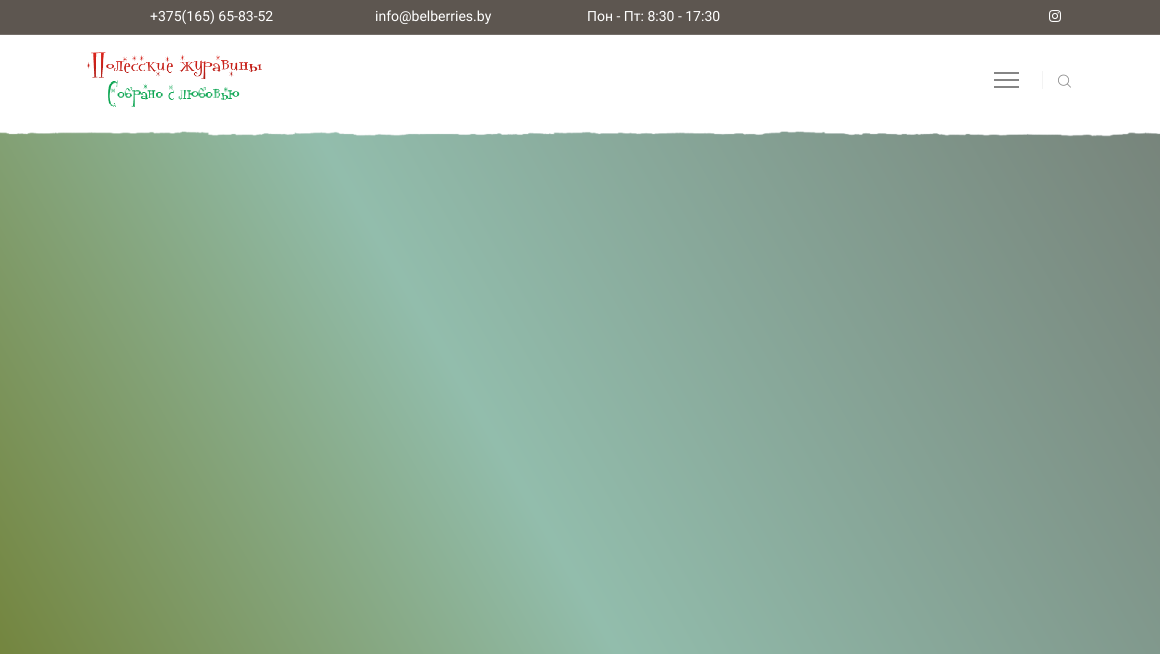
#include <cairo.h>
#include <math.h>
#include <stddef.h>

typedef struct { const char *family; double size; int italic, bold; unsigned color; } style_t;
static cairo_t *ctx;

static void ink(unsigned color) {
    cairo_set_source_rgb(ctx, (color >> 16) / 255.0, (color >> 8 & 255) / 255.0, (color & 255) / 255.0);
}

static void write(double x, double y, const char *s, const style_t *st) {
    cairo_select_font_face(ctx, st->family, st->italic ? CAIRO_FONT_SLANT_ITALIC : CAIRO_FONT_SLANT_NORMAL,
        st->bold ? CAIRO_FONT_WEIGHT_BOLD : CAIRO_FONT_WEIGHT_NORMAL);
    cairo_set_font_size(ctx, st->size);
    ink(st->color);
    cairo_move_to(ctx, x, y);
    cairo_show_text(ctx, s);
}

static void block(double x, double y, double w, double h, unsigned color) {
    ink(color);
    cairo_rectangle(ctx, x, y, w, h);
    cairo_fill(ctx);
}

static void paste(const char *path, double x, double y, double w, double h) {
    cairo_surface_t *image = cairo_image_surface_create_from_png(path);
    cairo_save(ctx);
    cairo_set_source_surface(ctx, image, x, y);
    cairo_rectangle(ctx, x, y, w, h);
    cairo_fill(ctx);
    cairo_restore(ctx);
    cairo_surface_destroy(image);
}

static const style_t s1 = {"Roboto", 14, 0, 0, 0xffffff};

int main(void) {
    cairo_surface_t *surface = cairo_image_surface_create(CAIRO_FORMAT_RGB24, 1160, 654);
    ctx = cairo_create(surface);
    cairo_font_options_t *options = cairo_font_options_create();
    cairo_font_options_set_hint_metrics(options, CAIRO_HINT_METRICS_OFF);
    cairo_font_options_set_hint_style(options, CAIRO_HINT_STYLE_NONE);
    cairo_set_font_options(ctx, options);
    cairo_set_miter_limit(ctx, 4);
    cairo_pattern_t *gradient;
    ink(0xffffff);
    cairo_paint(ctx);
    block(0, 0, 1160, 34, 0x5d5650);
    block(0, 34, 1160, 1, 0x746e69);
    write(150, 21, "+375(165) 65-83-52", &s1);
    write(375, 21, "info@belberries.by", &s1);
    write(587, 21, "Пон - Пт: 8:30 - 17:30", &s1);
    paste("pic1.png", 1049, 10, 12, 12);
    paste("pic2.png", 87, 52, 175, 55);
    block(994, 79, 25, 2, 0x858585);
    block(994, 72, 25, 2, 0x858585);
    block(994, 86, 25, 2, 0x858585);
    block(1042, 71, 1, 18, 0xf3f3f3);
    paste("pic3.png", 1058, 74, 13, 14);
    gradient = cairo_pattern_create_linear(-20, 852, 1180, 159);
    cairo_pattern_add_color_stop_rgba(gradient, 0, 0.427, 0.475, 0.153, 1);
    cairo_pattern_add_color_stop_rgba(gradient, 0.47, 0.573, 0.741, 0.675, 1);
    cairo_pattern_add_color_stop_rgba(gradient, 1, 0.467, 0.518, 0.482, 1);
    cairo_set_source(ctx, gradient);
    cairo_pattern_destroy(gradient);
    cairo_rectangle(ctx, 0, 131, 1160, 523);
    cairo_fill(ctx);
    paste("pic4.png", 0, 125, 1160, 12);
    cairo_surface_write_to_png(surface, "screenshot.png");
    cairo_font_options_destroy(options);
    cairo_destroy(ctx);
    cairo_surface_destroy(surface);
    return 0;
}
